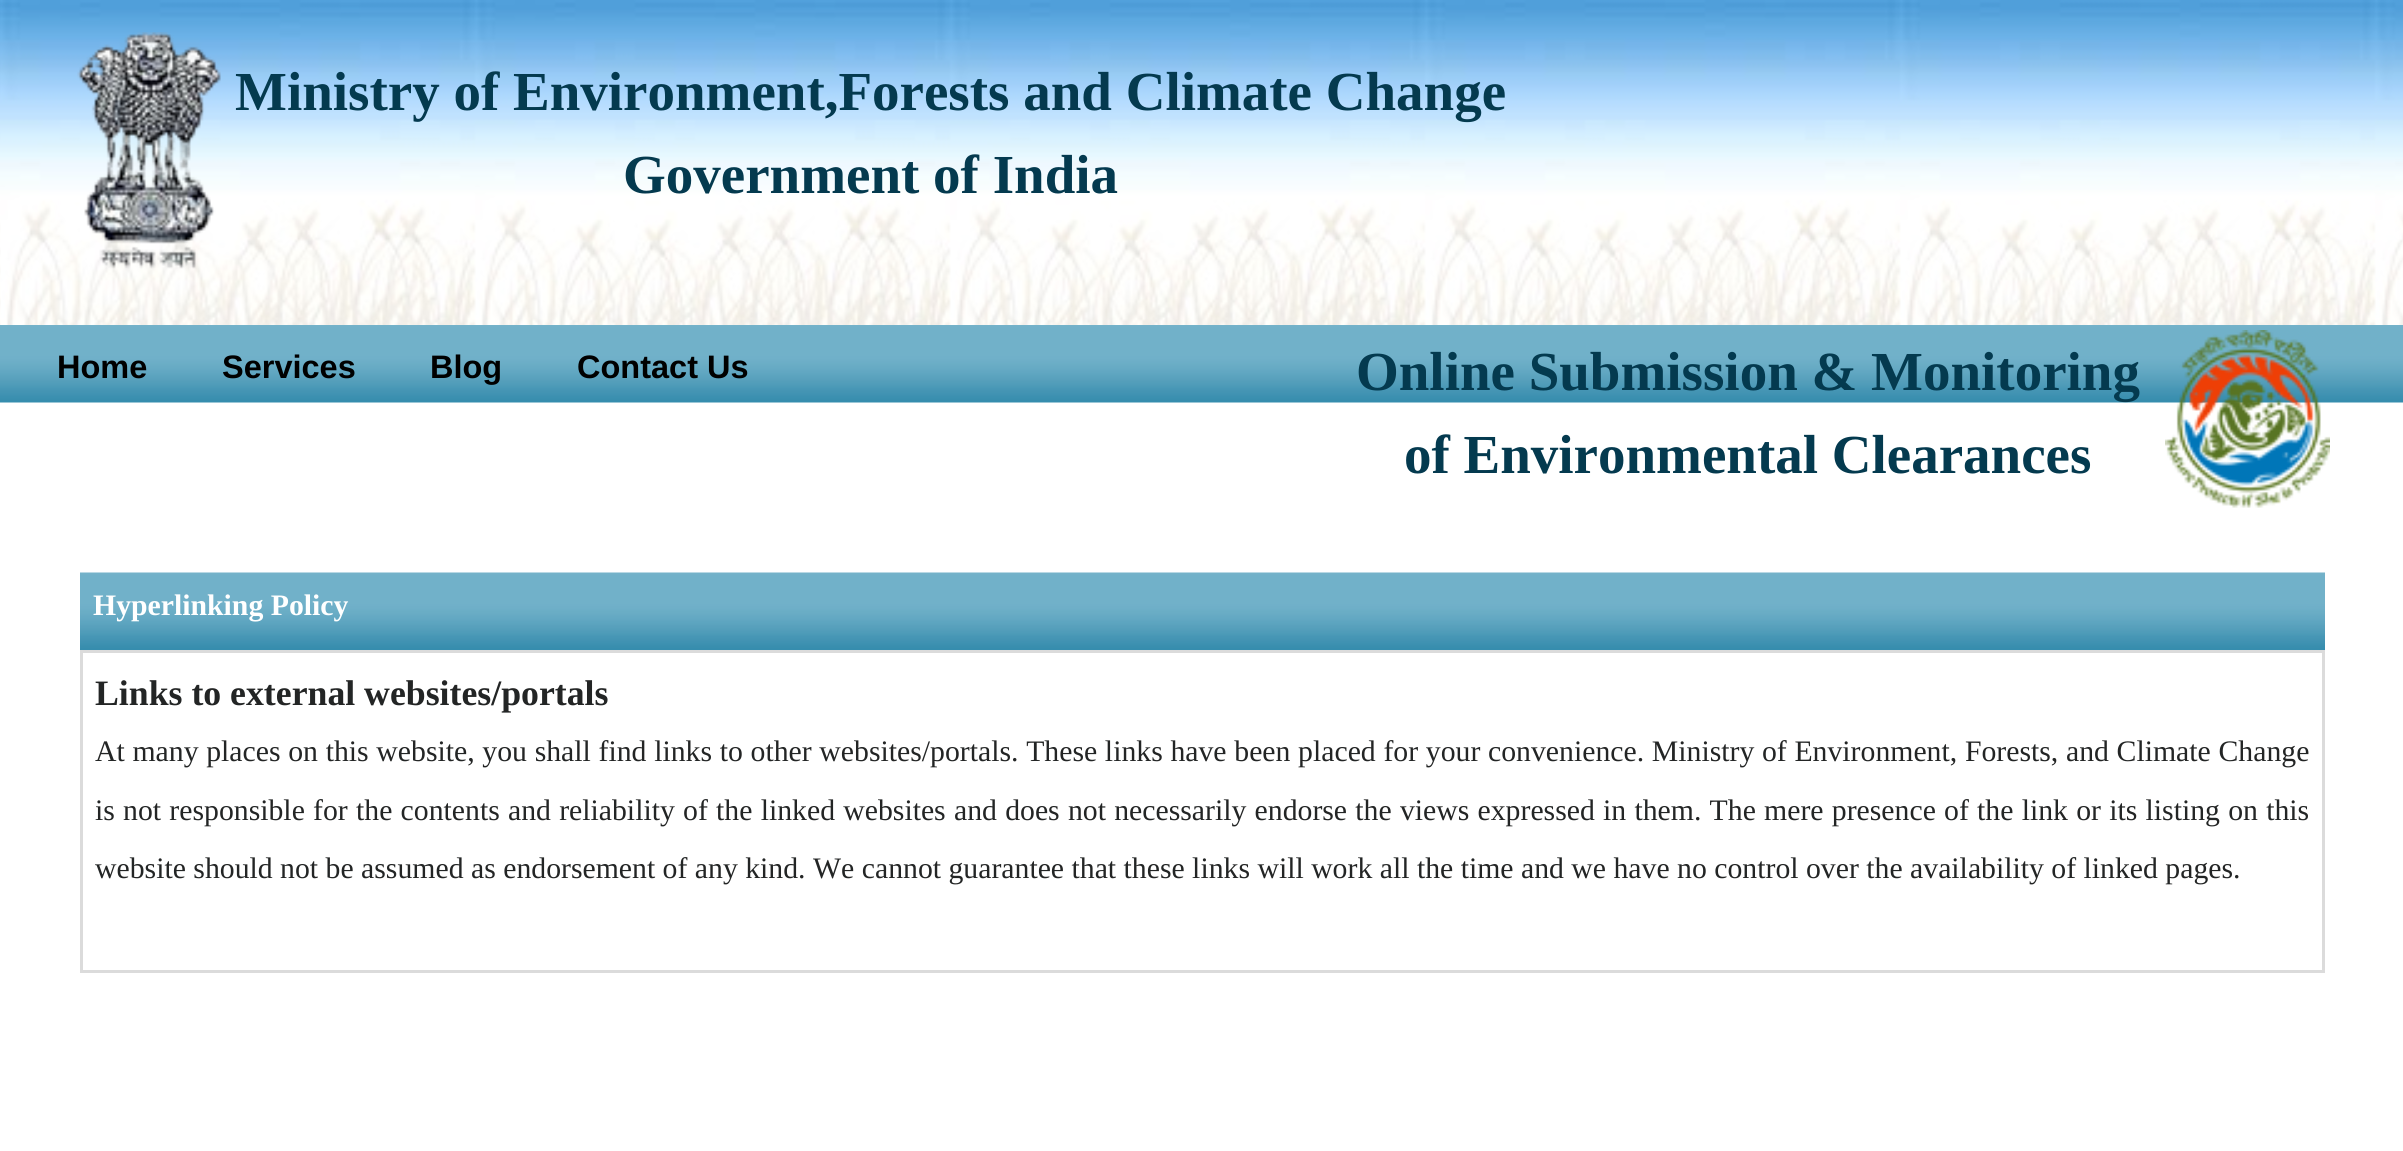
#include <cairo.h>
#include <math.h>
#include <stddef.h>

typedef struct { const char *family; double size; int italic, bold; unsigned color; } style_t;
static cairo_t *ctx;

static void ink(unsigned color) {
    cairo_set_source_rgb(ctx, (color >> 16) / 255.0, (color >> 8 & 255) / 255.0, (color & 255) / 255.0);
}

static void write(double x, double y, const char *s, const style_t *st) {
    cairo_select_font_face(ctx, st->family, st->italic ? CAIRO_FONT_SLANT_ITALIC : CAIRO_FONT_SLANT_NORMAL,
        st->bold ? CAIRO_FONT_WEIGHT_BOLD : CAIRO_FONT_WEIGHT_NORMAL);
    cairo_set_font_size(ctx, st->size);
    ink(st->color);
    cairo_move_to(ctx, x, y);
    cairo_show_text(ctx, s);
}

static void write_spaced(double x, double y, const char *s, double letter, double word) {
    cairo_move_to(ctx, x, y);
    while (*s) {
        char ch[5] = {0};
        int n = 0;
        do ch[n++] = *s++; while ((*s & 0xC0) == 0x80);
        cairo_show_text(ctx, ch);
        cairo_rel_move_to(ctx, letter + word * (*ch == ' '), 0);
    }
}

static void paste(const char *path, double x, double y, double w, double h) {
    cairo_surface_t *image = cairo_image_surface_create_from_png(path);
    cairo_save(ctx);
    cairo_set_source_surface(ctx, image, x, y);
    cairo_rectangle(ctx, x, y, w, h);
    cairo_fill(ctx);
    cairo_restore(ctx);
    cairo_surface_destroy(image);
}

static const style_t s1 = {"Liberation Serif", 55, 0, 1, 0x043a4f};
static const style_t s2 = {"Liberation Sans", 32.5, 0, 1, 0x000000};
static const style_t s3 = {"Liberation Serif", 29.75, 0, 1, 0xffffff};
static const style_t s4 = {"Liberation Serif", 35.75, 0, 1, 0x232525};
static const style_t s5 = {"Liberation Serif", 29.75, 0, 0, 0x232525};

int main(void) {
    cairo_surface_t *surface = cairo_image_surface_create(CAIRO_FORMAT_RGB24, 2403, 1151);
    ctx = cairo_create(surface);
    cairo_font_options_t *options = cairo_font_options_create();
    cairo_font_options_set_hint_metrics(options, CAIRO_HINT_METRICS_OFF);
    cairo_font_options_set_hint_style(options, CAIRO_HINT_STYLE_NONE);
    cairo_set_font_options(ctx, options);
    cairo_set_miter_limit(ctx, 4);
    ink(0xffffff);
    cairo_paint(ctx);
    paste("pic1.png", 0, 0, 2403, 325);
    paste("pic2.png", 77, 32, 144, 237);
    write(235, 110, "Ministry of Environment,Forests and Climate Change", &s1);
    write(623, 193, "Government of India", &s1);
    paste("pic4.png", 0, 325, 2403, 78);
    write(1356, 390, "Online Submission & Monitoring", &s1);
    write(1404, 473, "of Environmental Clearances", &s1);
    paste("pic3.png", 2165, 330, 165, 178);
    write(57, 378, "Home", &s2);
    write(222, 378, "Services", &s2);
    write(430, 378, "Blog", &s2);
    write(577, 378, "Contact Us", &s2);
    paste("pic5.png", 80, 572, 2245, 78);
    write(93, 615, "Hyperlinking Policy", &s3);
    cairo_rectangle(ctx, 81.5, 651.5, 2242, 320);
    ink(0xdbdbdb);
    cairo_set_line_width(ctx, 3);
    cairo_stroke(ctx);
    write(95, 705, "Links to external websites/portals", &s4);
    cairo_select_font_face(ctx, "Liberation Serif", CAIRO_FONT_SLANT_NORMAL, CAIRO_FONT_WEIGHT_NORMAL);
    cairo_set_font_size(ctx, 29.75);
    write_spaced(95, 761, "At many places on this website, you shall find links to other websites/portals. These links have been placed for your convenience. Ministry of Environment, Forests, and Climate Change", 0, 0.25);
    write_spaced(95, 820, "is not responsible for the contents and reliability of the linked websites and does not necessarily endorse the views expressed in them. The mere presence of the link or its listing on this", 0, 0.8);
    write(95, 878, "website should not be assumed as endorsement of any kind. We cannot guarantee that these links will work all the time and we have no control over the availability of linked pages.", &s5);
    cairo_surface_write_to_png(surface, "screenshot.png");
    cairo_font_options_destroy(options);
    cairo_destroy(ctx);
    cairo_surface_destroy(surface);
    return 0;
}
